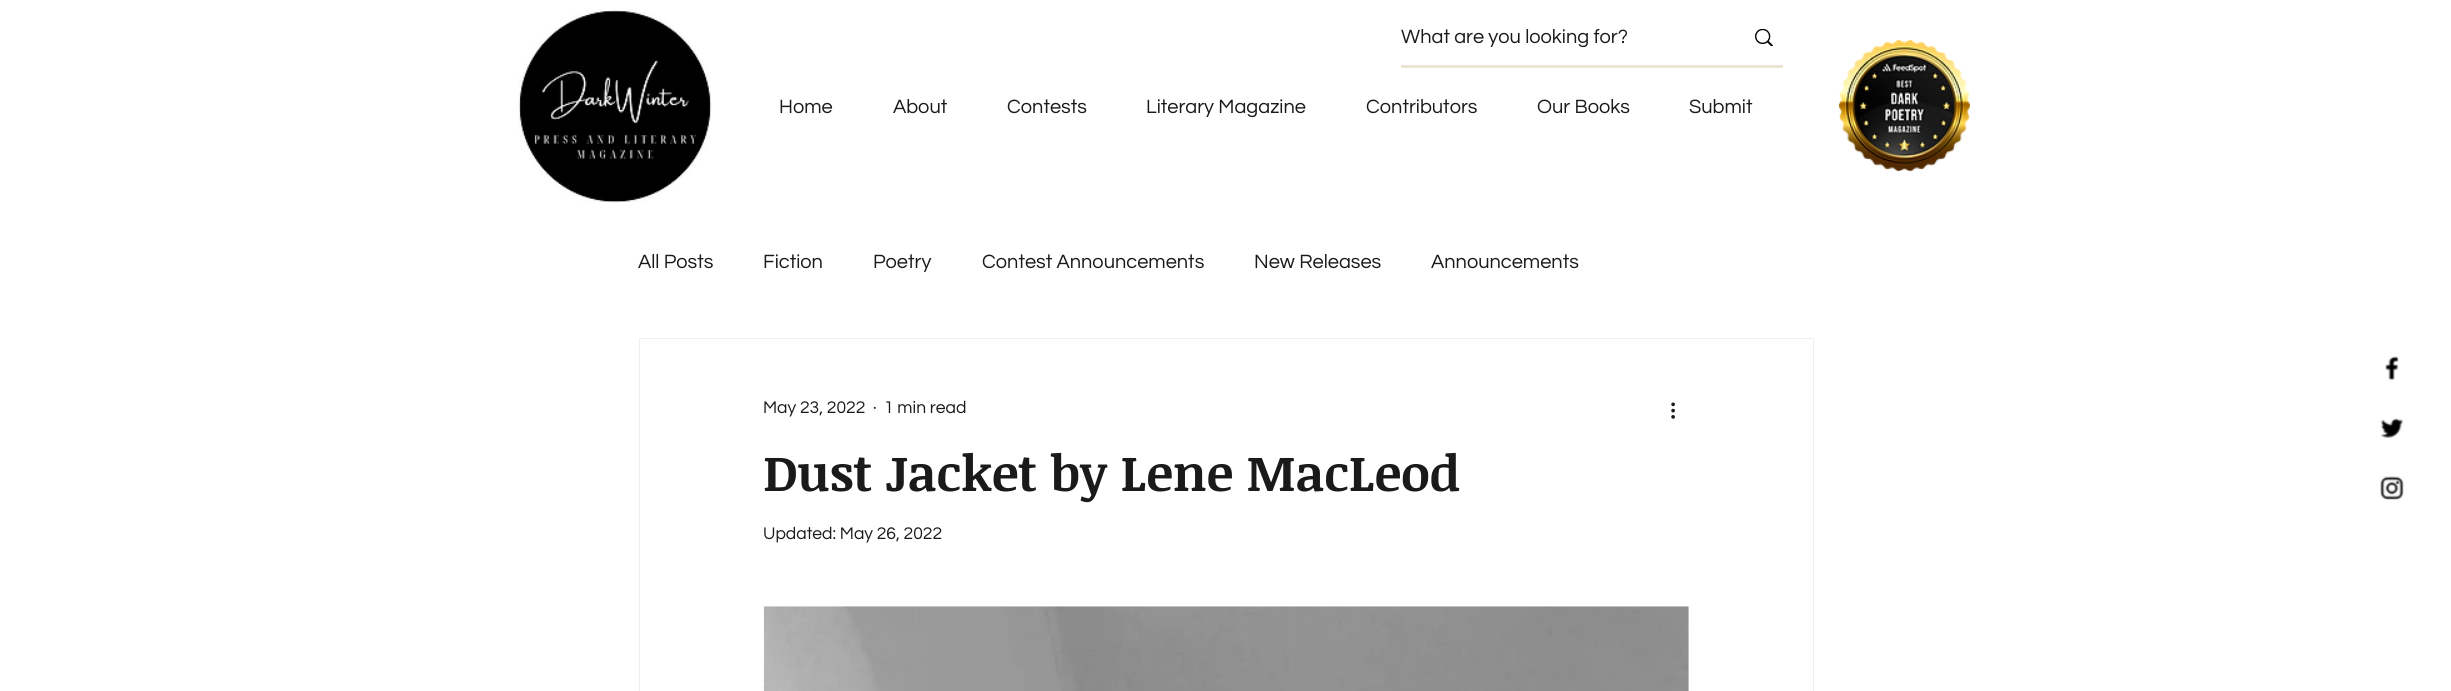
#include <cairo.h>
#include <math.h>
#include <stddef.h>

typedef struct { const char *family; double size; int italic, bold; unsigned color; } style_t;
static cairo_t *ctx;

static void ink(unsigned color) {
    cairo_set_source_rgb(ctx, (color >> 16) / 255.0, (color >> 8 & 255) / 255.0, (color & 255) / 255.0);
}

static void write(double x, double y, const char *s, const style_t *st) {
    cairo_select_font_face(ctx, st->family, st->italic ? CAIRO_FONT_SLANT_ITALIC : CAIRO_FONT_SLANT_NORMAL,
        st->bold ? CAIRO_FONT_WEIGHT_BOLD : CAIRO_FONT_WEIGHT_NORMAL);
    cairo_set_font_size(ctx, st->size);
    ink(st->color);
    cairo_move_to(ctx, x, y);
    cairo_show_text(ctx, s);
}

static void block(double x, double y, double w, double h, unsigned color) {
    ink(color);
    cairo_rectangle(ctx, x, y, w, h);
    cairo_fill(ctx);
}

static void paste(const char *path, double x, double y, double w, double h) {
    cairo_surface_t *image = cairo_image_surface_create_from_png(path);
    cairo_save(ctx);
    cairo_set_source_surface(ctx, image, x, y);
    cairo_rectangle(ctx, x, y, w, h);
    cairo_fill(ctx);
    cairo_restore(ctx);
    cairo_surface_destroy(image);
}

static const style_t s1 = {"Questrial", 20, 0, 0, 0x1a1a1a};
static const style_t s2 = {"Questrial", 17.5, 0, 0, 0x1a1a1a};
static const style_t s3 = {"Noticia Text", 50, 0, 1, 0x1a1a1a};

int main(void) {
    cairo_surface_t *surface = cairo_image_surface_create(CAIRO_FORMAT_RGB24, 2451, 691);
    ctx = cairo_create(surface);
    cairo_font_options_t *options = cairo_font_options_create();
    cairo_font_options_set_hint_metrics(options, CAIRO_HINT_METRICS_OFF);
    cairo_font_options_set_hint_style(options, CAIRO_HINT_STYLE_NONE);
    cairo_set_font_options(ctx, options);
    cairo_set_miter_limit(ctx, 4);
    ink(0xffffff);
    cairo_paint(ctx);
    paste("pic1.png", 518, 9, 194, 194);
    block(1401, 65, 382, 3, 0xebe5d6);
    write(1401, 43, "What are you looking for?", &s1);
    paste("pic2.png", 1755, 29, 18, 17);
    write(779, 113, "Home", &s1);
    write(893, 113, "About", &s1);
    write(1007, 113, "Contests", &s1);
    write(1146, 113, "Literary Magazine", &s1);
    write(1366, 113, "Contributors", &s1);
    write(1537, 113, "Our Books", &s1);
    write(1689, 113, "Submit", &s1);
    paste("pic3.png", 1838, 40, 132, 132);
    write(638, 268, "All Posts", &s1);
    write(763, 268, "Fiction", &s1);
    write(873, 268, "Poetry", &s1);
    write(982, 268, "Contest Announcements", &s1);
    write(1254, 268, "New Releases", &s1);
    write(1431, 268, "Announcements", &s1);
    cairo_rectangle(ctx, 639.5, 338.5, 1174, 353);
    ink(0xecefec);
    cairo_set_line_width(ctx, 1);
    cairo_stroke(ctx);
    write(763, 413, "May 23, 2022", &s2);
    write(873, 413, "·", &s2);
    write(884, 413, "1 min read", &s2);
    paste("pic4.png", 1671, 402, 4, 17);
    write(763, 491, "Dust Jacket by Lene MacLeod", &s3);
    write(763, 539, "Updated: May 26, 2022", &s2);
    paste("pic5.png", 763, 606, 926, 85);
    paste("pic6.png", 2385, 356, 14, 25);
    paste("pic7.png", 2380, 418, 24, 20);
    paste("pic8.png", 2380, 476, 24, 24);
    cairo_surface_write_to_png(surface, "screenshot.png");
    cairo_font_options_destroy(options);
    cairo_destroy(ctx);
    cairo_surface_destroy(surface);
    return 0;
}
